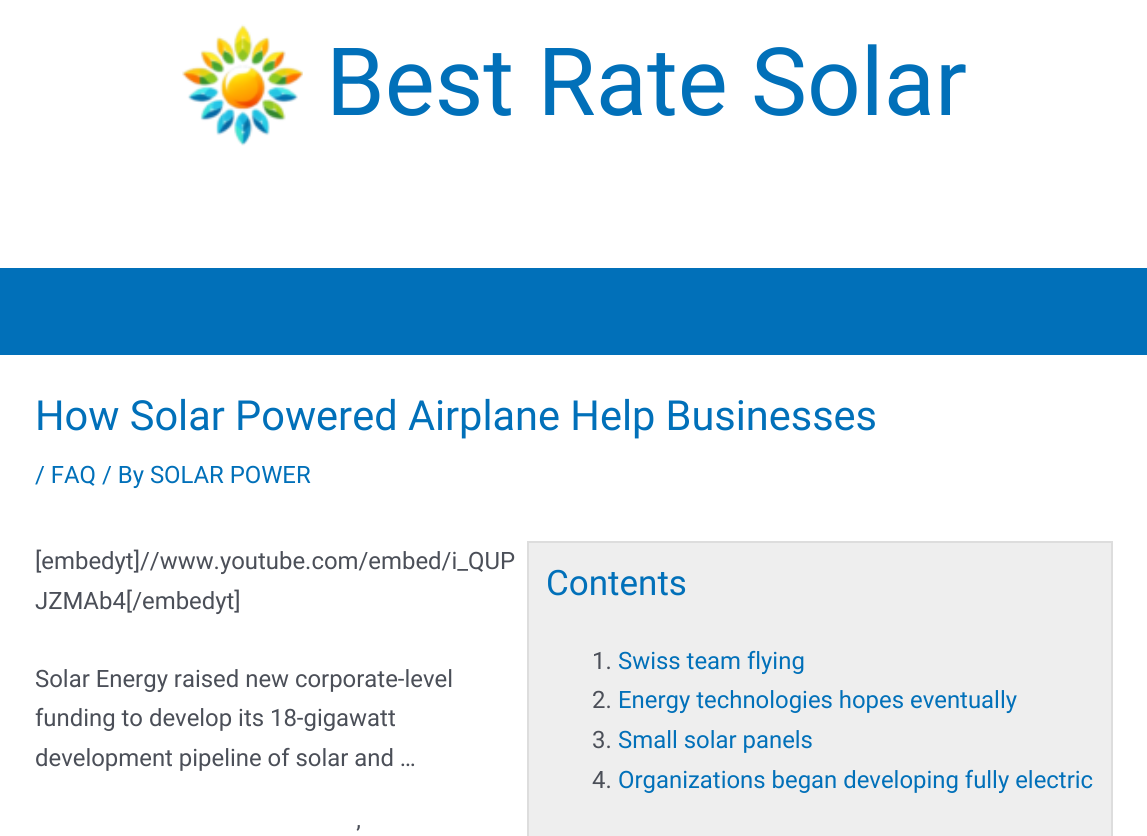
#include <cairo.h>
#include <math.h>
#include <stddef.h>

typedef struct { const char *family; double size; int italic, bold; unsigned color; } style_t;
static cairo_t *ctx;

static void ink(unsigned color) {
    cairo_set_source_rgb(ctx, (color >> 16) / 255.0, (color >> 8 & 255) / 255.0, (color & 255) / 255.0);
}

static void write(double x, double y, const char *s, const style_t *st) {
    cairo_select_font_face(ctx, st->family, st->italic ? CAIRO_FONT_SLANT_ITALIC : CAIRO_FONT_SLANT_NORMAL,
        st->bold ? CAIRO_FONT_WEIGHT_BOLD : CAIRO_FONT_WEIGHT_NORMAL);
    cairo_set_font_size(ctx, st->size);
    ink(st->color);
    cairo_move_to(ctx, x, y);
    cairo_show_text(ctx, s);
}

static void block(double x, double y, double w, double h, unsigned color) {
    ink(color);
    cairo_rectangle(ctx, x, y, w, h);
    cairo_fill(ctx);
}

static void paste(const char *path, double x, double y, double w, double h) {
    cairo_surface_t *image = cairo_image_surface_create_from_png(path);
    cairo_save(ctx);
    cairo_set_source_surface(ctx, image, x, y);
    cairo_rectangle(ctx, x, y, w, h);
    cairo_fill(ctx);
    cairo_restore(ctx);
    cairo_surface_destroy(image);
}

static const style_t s1 = {"Roboto", 94.25, 0, 0, 0x0170b9};
static const style_t s2 = {"Roboto", 41.5, 0, 0, 0x0170b9};
static const style_t s3 = {"Roboto", 23.9, 0, 0, 0x0170b9};
static const style_t s4 = {"Roboto", 23.9, 0, 0, 0x4b4f58};
static const style_t s5 = {"Roboto", 35, 0, 0, 0x0170b9};

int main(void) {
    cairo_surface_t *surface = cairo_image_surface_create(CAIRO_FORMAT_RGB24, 1147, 836);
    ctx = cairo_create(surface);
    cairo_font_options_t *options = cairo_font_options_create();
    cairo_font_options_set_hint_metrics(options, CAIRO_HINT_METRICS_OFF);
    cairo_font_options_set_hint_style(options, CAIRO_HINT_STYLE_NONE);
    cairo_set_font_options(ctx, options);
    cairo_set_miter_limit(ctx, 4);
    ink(0xffffff);
    cairo_paint(ctx);
    block(0, 268, 1147, 87, 0x0170b9);
    paste("pic1.png", 182, 24, 121, 122);
    write(326, 115, "Best Rate Solar", &s1);
    write(35, 430, "How Solar Powered Airplane Help Businesses", &s2);
    write(35, 483, "/ FAQ / By SOLAR POWER", &s3);
    write(35, 569, "[embedyt]//www.youtube.com/embed/i_QUP", &s4);
    write(35, 609, "JZMAb4[/embedyt]", &s4);
    ink(0xeeeeee);
    cairo_rectangle(ctx, 528, 542, 584, 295);
    cairo_fill_preserve(ctx);
    ink(0xdddddd);
    cairo_stroke(ctx);
    write(546, 595, "Contents", &s5);
    write(592, 669, "1.", &s4);
    write(618, 669, "Swiss team flying", &s3);
    write(592, 708, "2.", &s4);
    write(618, 708, "Energy technologies hopes eventually", &s3);
    write(592, 748, "3.", &s4);
    write(618, 748, "Small solar panels", &s3);
    write(592, 788, "4.", &s4);
    write(618, 788, "Organizations began developing fully electric", &s3);
    write(35, 687, "Solar Energy raised new corporate-level", &s4);
    write(35, 726, "funding to develop its 18-gigawatt", &s4);
    write(35, 766, "development pipeline of solar and …", &s4);
    write(356, 843, "’", &s4);
    cairo_surface_write_to_png(surface, "screenshot.png");
    cairo_font_options_destroy(options);
    cairo_destroy(ctx);
    cairo_surface_destroy(surface);
    return 0;
}
